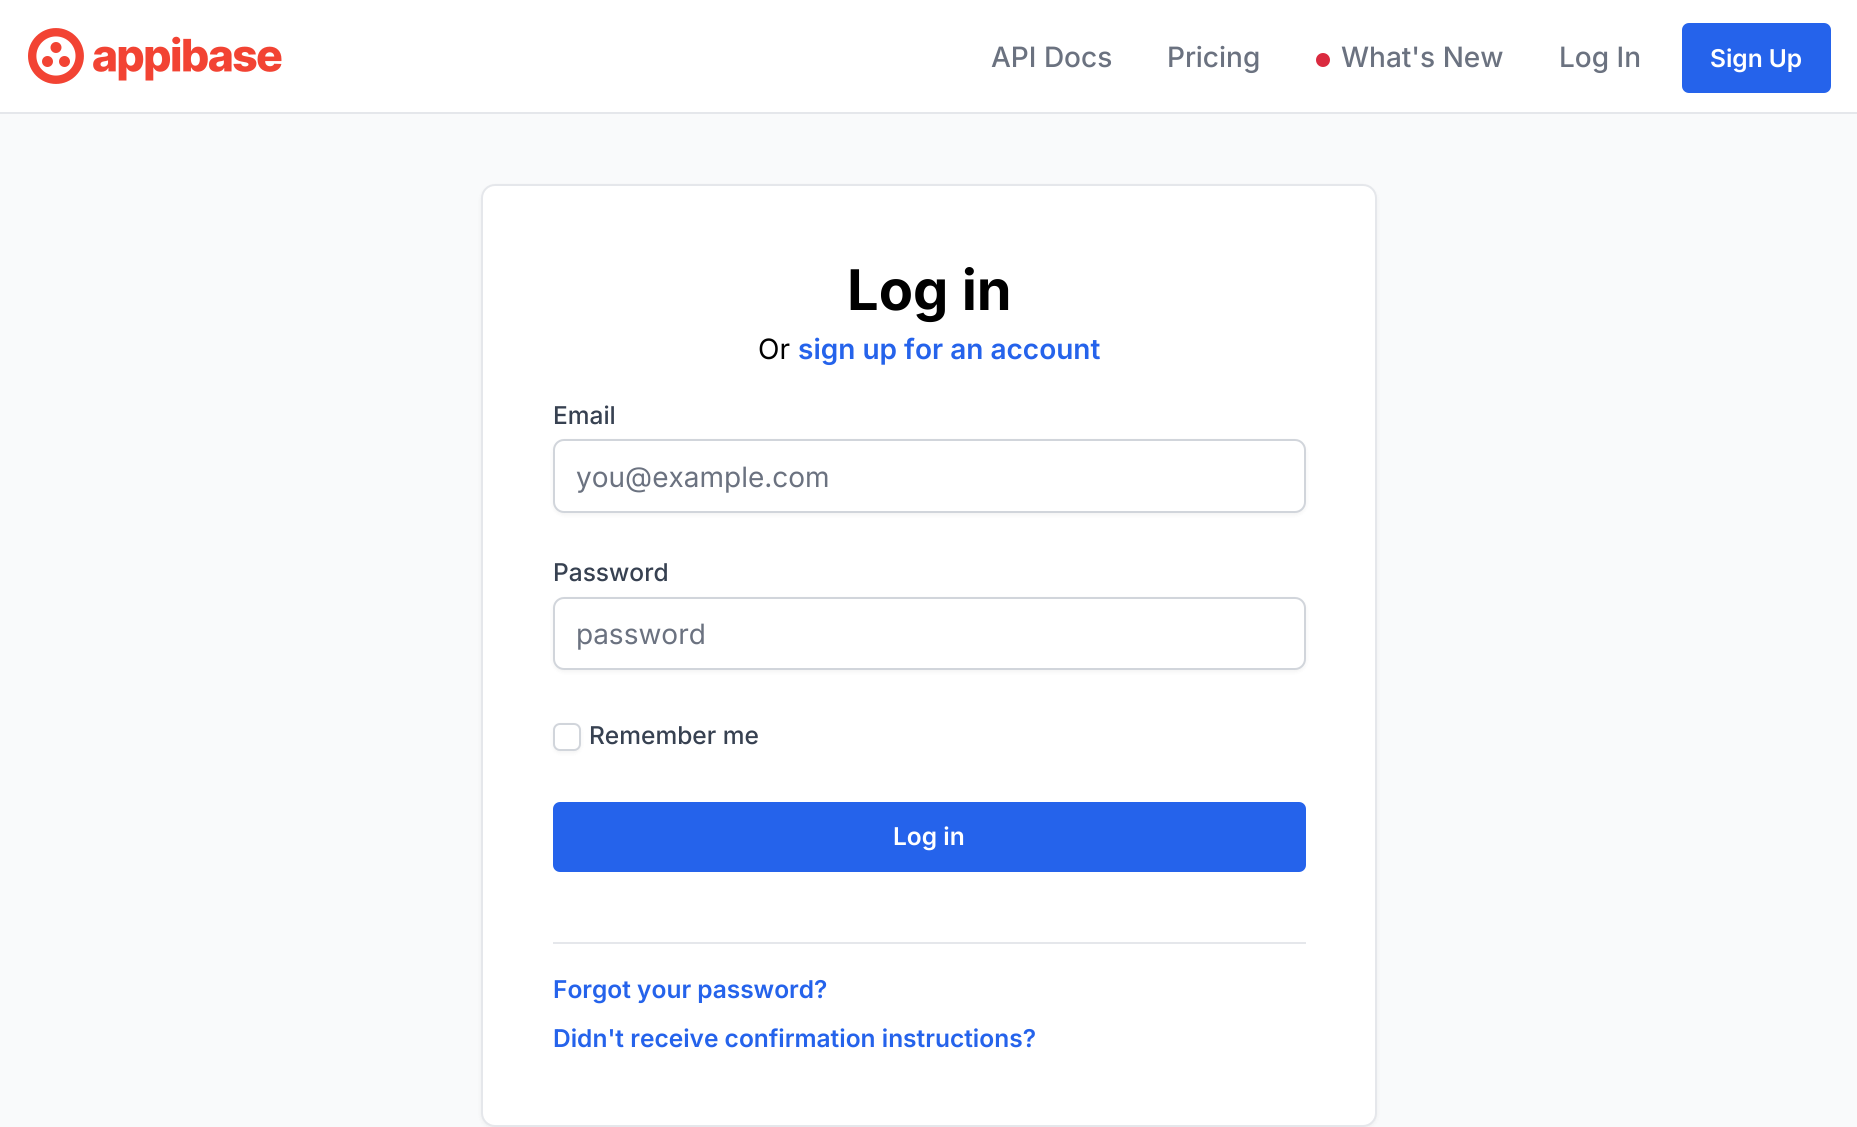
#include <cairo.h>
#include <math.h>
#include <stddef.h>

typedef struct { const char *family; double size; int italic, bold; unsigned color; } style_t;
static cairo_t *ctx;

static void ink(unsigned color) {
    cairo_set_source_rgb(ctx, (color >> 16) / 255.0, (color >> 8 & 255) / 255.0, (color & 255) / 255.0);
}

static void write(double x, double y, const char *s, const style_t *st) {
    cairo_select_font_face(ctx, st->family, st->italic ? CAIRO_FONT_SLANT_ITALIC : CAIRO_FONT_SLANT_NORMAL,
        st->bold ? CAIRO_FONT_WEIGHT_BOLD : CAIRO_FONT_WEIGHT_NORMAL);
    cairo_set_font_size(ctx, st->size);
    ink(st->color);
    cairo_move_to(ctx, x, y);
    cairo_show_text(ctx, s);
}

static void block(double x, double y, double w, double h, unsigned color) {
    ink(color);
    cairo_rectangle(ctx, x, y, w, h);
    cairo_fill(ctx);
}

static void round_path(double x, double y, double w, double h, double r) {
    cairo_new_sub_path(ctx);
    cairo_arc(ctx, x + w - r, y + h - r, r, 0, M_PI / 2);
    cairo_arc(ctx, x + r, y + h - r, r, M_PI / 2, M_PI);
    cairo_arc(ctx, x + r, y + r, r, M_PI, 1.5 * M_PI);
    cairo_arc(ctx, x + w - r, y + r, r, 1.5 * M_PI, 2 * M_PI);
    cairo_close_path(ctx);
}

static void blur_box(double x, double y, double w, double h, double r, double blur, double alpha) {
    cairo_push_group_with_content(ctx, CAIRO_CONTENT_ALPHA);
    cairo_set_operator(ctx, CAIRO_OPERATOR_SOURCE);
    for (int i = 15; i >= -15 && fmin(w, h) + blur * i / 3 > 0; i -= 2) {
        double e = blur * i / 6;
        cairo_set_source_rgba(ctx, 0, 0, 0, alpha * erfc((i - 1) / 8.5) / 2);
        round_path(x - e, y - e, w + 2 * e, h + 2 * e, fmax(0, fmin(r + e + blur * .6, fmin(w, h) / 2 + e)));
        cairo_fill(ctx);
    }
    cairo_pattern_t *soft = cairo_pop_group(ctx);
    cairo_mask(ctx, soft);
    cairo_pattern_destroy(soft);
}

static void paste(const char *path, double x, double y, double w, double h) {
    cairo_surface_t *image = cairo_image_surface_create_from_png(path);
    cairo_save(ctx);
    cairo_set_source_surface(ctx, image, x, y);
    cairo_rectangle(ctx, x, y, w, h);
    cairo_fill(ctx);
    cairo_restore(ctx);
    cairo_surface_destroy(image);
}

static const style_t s1 = {"Inter Medium", 28, 0, 0, 0x6b7280};
static const style_t s2 = {"Inter SemiBold", 24.5, 0, 0, 0xffffff};
static const style_t s3 = {"Inter", 56, 0, 1, 0x000000};
static const style_t s4 = {"Inter", 28, 0, 0, 0x000000};
static const style_t s5 = {"Inter SemiBold", 28, 0, 0, 0x2563eb};
static const style_t s6 = {"Inter Medium", 24.5, 0, 0, 0x374151};
static const style_t s7 = {"Inter", 28, 0, 0, 0x6b7280};
static const style_t s8 = {"Inter SemiBold", 24.5, 0, 0, 0x2563eb};

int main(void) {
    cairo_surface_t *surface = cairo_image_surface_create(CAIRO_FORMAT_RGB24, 1857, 1127);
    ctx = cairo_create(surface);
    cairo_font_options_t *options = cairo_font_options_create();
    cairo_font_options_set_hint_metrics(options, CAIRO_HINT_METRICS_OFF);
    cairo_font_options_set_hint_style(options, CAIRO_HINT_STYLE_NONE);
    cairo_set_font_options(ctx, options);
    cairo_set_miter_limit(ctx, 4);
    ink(0xf9fafb);
    cairo_paint(ctx);
    block(0, 0, 1857, 112, 0xffffff);
    block(0, 112, 1857, 2, 0xe5e7eb);
    paste("pic1.png", 28, 28, 254, 56);
    write(991, 67, "API Docs", &s1);
    write(1167, 67, "Pricing", &s1);
    ink(0xda2a3f);
    cairo_new_path(ctx);
    cairo_arc(ctx, 1323, 60, 7, 0, 2 * M_PI);
    cairo_fill(ctx);
    write(1341, 67, "What's New", &s1);
    write(1559, 67, "Log In", &s1);
    ink(0x2563eb);
    round_path(1682, 23, 149, 70, 7);
    cairo_fill(ctx);
    write(1710, 67, "Sign Up", &s2);
    ink(0x000000);
    blur_box(481, 186, 896, 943, 14, 2, 0.05);
    ink(0xffffff);
    round_path(482, 185, 894, 941, 13);
    cairo_fill_preserve(ctx);
    ink(0xe5e7eb);
    cairo_stroke(ctx);
    write(847, 310, "Log in", &s3);
    write(758, 359, "Or", &s4);
    write(798, 359, "sign up for an account", &s5);
    write(553, 424, "Email", &s6);
    ink(0x000000);
    blur_box(553, 441, 753, 74, 11, 2, 0.05);
    ink(0xffffff);
    round_path(554, 440, 751, 72, 10);
    cairo_fill_preserve(ctx);
    ink(0xd1d5db);
    cairo_stroke(ctx);
    write(576, 487, "you@example.com", &s7);
    write(553, 581, "Password", &s6);
    ink(0x000000);
    blur_box(553, 599, 753, 73, 11, 2, 0.05);
    ink(0xffffff);
    round_path(554, 598, 751, 71, 10);
    cairo_fill_preserve(ctx);
    ink(0xd1d5db);
    cairo_stroke(ctx);
    write(576, 644, "password", &s7);
    ink(0x000000);
    blur_box(553, 725, 28, 28, 7, 2, 0.05);
    ink(0xffffff);
    round_path(554, 724, 26, 26, 6);
    cairo_fill_preserve(ctx);
    ink(0xd1d5db);
    cairo_stroke(ctx);
    write(589, 744, "Remember me", &s6);
    ink(0x2563eb);
    round_path(553, 802, 753, 70, 7);
    cairo_fill(ctx);
    write(893, 845, "Log in", &s2);
    block(553, 942, 753, 2, 0xe5e7eb);
    write(553, 998, "Forgot your password?", &s8);
    write(553, 1047, "Didn't receive confirmation instructions?", &s8);
    cairo_surface_write_to_png(surface, "screenshot.png");
    cairo_font_options_destroy(options);
    cairo_destroy(ctx);
    cairo_surface_destroy(surface);
    return 0;
}
